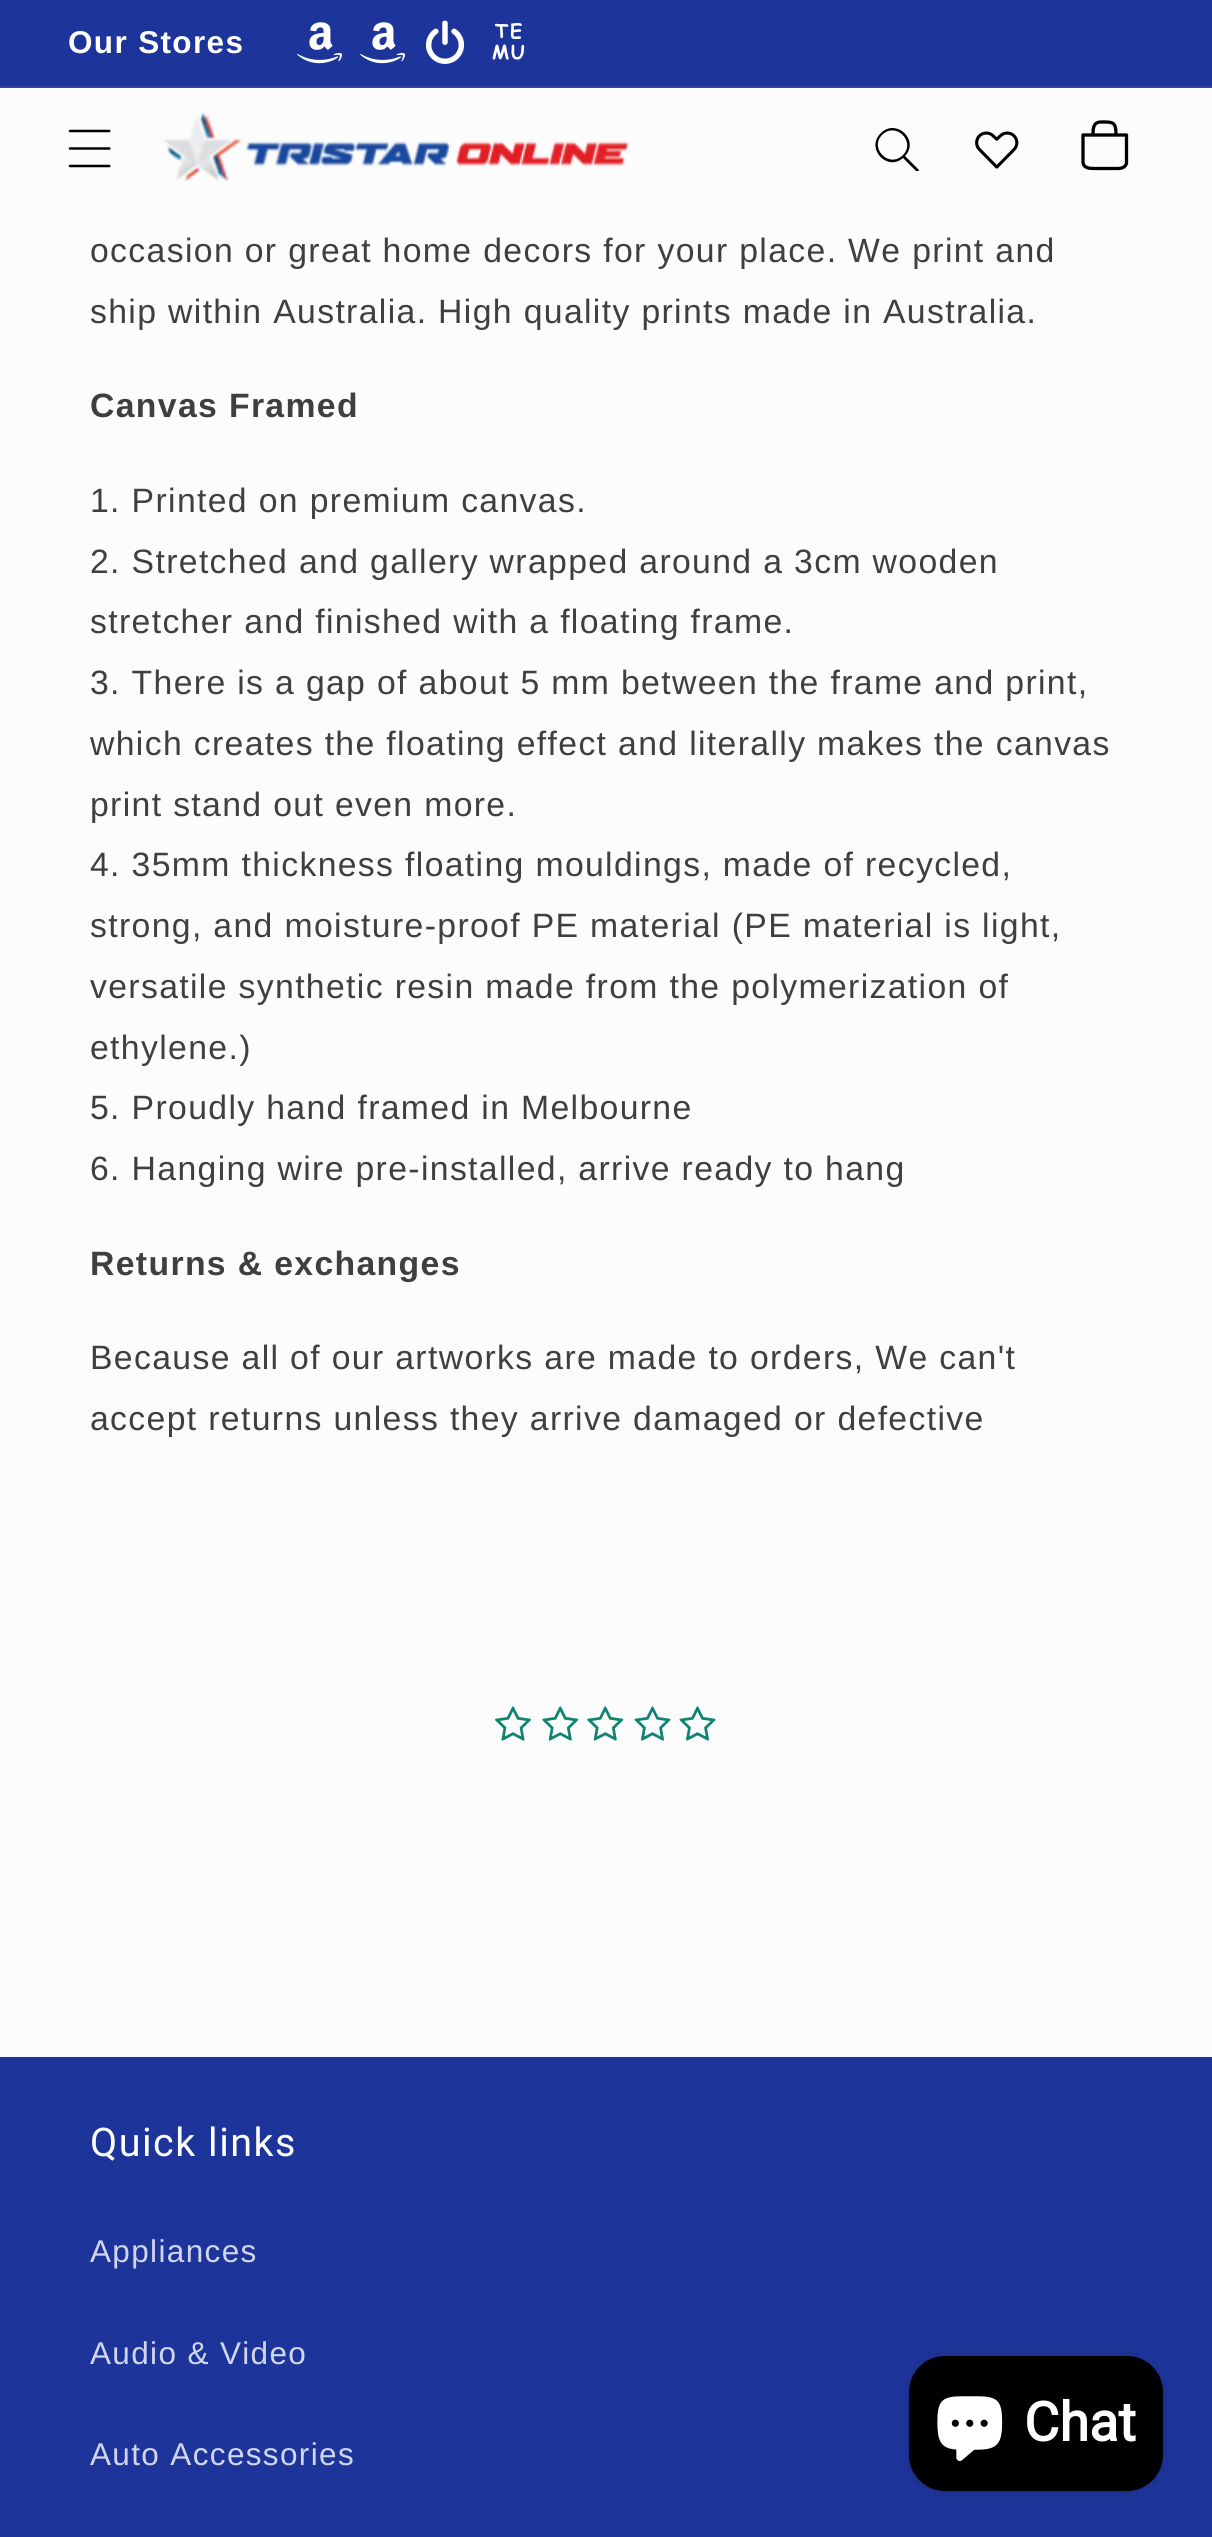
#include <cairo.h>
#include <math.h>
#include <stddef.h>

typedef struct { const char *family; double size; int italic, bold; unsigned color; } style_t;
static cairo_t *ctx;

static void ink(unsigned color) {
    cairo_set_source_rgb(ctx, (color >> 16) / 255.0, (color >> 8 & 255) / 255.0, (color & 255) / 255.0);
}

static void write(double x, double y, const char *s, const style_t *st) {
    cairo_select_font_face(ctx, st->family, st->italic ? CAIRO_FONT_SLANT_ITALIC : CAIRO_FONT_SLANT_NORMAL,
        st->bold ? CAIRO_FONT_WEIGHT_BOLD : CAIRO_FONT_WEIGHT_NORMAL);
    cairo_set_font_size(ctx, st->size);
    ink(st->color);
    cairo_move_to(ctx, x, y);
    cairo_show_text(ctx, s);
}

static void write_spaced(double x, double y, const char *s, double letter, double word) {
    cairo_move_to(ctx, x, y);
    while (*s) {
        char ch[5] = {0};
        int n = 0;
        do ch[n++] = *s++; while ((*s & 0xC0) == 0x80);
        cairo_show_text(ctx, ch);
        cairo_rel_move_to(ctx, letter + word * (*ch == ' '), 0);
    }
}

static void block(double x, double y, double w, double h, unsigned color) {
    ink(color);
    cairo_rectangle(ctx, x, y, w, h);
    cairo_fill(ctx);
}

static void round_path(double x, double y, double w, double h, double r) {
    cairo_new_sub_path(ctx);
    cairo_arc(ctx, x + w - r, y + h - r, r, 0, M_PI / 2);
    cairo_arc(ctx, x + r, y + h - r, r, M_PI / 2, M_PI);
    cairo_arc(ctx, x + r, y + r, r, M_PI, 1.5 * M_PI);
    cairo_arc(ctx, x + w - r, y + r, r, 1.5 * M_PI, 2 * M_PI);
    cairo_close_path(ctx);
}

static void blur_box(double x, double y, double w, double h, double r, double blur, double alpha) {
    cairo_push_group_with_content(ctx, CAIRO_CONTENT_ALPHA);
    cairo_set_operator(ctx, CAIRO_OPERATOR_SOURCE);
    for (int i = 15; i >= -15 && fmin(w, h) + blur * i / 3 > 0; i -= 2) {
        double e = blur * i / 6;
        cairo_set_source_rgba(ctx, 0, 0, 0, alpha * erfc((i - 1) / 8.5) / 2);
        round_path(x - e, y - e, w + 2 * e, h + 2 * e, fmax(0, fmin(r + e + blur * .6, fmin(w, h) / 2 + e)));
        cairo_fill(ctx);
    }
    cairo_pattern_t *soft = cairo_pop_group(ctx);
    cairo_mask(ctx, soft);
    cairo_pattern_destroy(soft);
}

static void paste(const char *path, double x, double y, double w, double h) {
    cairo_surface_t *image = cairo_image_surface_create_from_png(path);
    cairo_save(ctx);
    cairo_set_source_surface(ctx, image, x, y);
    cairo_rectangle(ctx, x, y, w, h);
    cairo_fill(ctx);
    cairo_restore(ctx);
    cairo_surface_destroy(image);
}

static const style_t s1 = {"Roboto", 54, 0, 1, 0xffffff};

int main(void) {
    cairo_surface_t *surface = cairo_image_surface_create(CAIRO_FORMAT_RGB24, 1212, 2537);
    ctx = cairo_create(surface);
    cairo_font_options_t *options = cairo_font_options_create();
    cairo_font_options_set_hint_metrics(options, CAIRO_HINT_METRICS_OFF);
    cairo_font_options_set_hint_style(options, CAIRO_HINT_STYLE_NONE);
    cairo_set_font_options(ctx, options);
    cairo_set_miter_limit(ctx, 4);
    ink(0xfcfcfc);
    cairo_paint(ctx);
    block(0, 0, 1212, 86, 0x1d349a);
    block(0, 86, 1212, 2, 0x2f44a2);
    cairo_select_font_face(ctx, "Liberation Sans", CAIRO_FONT_SLANT_NORMAL, CAIRO_FONT_WEIGHT_BOLD);
    cairo_set_font_size(ctx, 31.5);
    ink(0xffffff);
    write_spaced(68, 53, "Our Stores", 1.35, 0);
    paste("pic1.png", 297, 22, 45, 42);
    paste("pic1.png", 360, 22, 45, 42);
    paste("pic2.png", 426, 20, 38, 44);
    paste("pic3.png", 492, 22, 33, 38);
    paste("pic4.png", 68, 129, 43, 39);
    paste("pic5.png", 163, 112, 467, 70);
    cairo_save(ctx);
    cairo_rectangle(ctx, 875, 126, 45, 45);
    cairo_clip(ctx);
    ink(0x000000);
    cairo_set_fill_rule(ctx, CAIRO_FILL_RULE_EVEN_ODD);
    cairo_new_path(ctx);
    cairo_move_to(ctx, 903, 155);
    cairo_curve_to(ctx, 889, 169, 869, 148, 882, 135);
    cairo_curve_to(ctx, 896, 121, 916, 142, 903, 155);
    cairo_move_to(ctx, 903, 158);
    cairo_curve_to(ctx, 887, 172, 865, 148, 881, 133);
    cairo_curve_to(ctx, 896, 118, 920, 140, 905, 156);
    cairo_line_to(ctx, 919, 170);
    cairo_curve_to(ctx, 919, 172, 918, 172, 917, 172);
    cairo_close_path(ctx);
    cairo_fill(ctx);
    cairo_restore(ctx);
    paste("pic6.png", 975, 131, 44, 38);
    cairo_new_path(ctx);
    cairo_move_to(ctx, 1083, 135);
    cairo_line_to(ctx, 1126.5, 135);
    cairo_line_to(ctx, 1126.5, 163.5);
    cairo_curve_to(ctx, 1124.5, 169, 1119, 168.5, 1114.5, 168.5);
    cairo_line_to(ctx, 1095, 168.5);
    cairo_curve_to(ctx, 1090, 168.5, 1083, 168.5, 1083, 161.5);
    cairo_close_path(ctx);
    cairo_move_to(ctx, 1101, 122);
    cairo_curve_to(ctx, 1113, 122, 1116, 121.5, 1116, 135);
    cairo_line_to(ctx, 1093, 135);
    cairo_curve_to(ctx, 1093, 129, 1093, 122, 1101, 122);
    ink(0x000000);
    cairo_set_line_width(ctx, 3.3);
    cairo_set_line_cap(ctx, CAIRO_LINE_CAP_ROUND);
    cairo_set_line_join(ctx, CAIRO_LINE_JOIN_ROUND);
    cairo_stroke(ctx);
    cairo_select_font_face(ctx, "Liberation Sans", CAIRO_FONT_SLANT_NORMAL, CAIRO_FONT_WEIGHT_NORMAL);
    cairo_set_font_size(ctx, 33.75);
    ink(0x3f3f3f);
    write_spaced(90, 262, "occasion or great home decors for your place. We print and", 1.35, 0);
    write_spaced(90, 323, "ship within Australia. High quality prints made in Australia.", 1.35, 0);
    cairo_select_font_face(ctx, "Liberation Sans", CAIRO_FONT_SLANT_NORMAL, CAIRO_FONT_WEIGHT_BOLD);
    write_spaced(90, 417, "Canvas Framed", 1.35, 0);
    cairo_select_font_face(ctx, "Liberation Sans", CAIRO_FONT_SLANT_NORMAL, CAIRO_FONT_WEIGHT_NORMAL);
    write_spaced(90, 512, "1. Printed on premium canvas.", 1.35, 0);
    write_spaced(90, 573, "2. Stretched and gallery wrapped around a 3cm wooden", 1.35, 0);
    write_spaced(90, 633, "stretcher and finished with a floating frame.", 1.35, 0);
    write_spaced(90, 694, "3. There is a gap of about 5 mm between the frame and print,", 1.35, 0);
    write_spaced(90, 755, "which creates the floating effect and literally makes the canvas", 1.35, 0);
    write_spaced(90, 816, "print stand out even more.", 1.35, 0);
    write_spaced(90, 876, "4. 35mm thickness floating mouldings, made of recycled,", 1.35, 0);
    write_spaced(90, 937, "strong, and moisture-proof PE material (PE material is light,", 1.35, 0);
    write_spaced(90, 998, "versatile synthetic resin made from the polymerization of", 1.35, 0);
    write_spaced(90, 1059, "ethylene.)", 1.35, 0);
    write_spaced(90, 1119, "5. Proudly hand framed in Melbourne", 1.35, 0);
    write_spaced(90, 1180, "6. Hanging wire pre-installed, arrive ready to hang", 1.35, 0);
    cairo_select_font_face(ctx, "Liberation Sans", CAIRO_FONT_SLANT_NORMAL, CAIRO_FONT_WEIGHT_BOLD);
    write_spaced(90, 1275, "Returns & exchanges", 1.35, 0);
    cairo_select_font_face(ctx, "Liberation Sans", CAIRO_FONT_SLANT_NORMAL, CAIRO_FONT_WEIGHT_NORMAL);
    write_spaced(90, 1369, "Because all of our artworks are made to orders, We can't", 1.35, 0);
    write_spaced(90, 1430, "accept returns unless they arrive damaged or defective", 1.35, 0);
    paste("pic7.png", 495, 1706, 36, 35);
    paste("pic8.png", 542, 1706, 37, 35);
    paste("pic8.png", 587, 1706, 37, 35);
    paste("pic9.png", 634, 1706, 37, 35);
    paste("pic9.png", 679, 1706, 37, 35);
    block(0, 2057, 1212, 480, 0x1d349a);
    cairo_select_font_face(ctx, "Roboto", CAIRO_FONT_SLANT_NORMAL, CAIRO_FONT_WEIGHT_NORMAL);
    cairo_set_font_size(ctx, 39.5);
    ink(0xffffff);
    write_spaced(90, 2156, "Quick links", 1.5, 0);
    cairo_select_font_face(ctx, "Liberation Sans", CAIRO_FONT_SLANT_NORMAL, CAIRO_FONT_WEIGHT_NORMAL);
    cairo_set_font_size(ctx, 31.5);
    ink(0xd2d6eb);
    write_spaced(90, 2262, "Appliances", 1.35, 0);
    write_spaced(90, 2364, "Audio & Video", 1.35, 0);
    write_spaced(90, 2465, "Auto Accessories", 1.35, 0);
    ink(0x000000);
    blur_box(909, 2356, 254, 135, 36, 5.5, 0.15);
    ink(0x000000);
    round_path(909, 2356, 254, 135, 36);
    cairo_fill(ctx);
    paste("pic10.png", 937, 2396, 66, 65);
    write(1024, 2441, "Chat", &s1);
    cairo_surface_write_to_png(surface, "screenshot.png");
    cairo_font_options_destroy(options);
    cairo_destroy(ctx);
    cairo_surface_destroy(surface);
    return 0;
}
